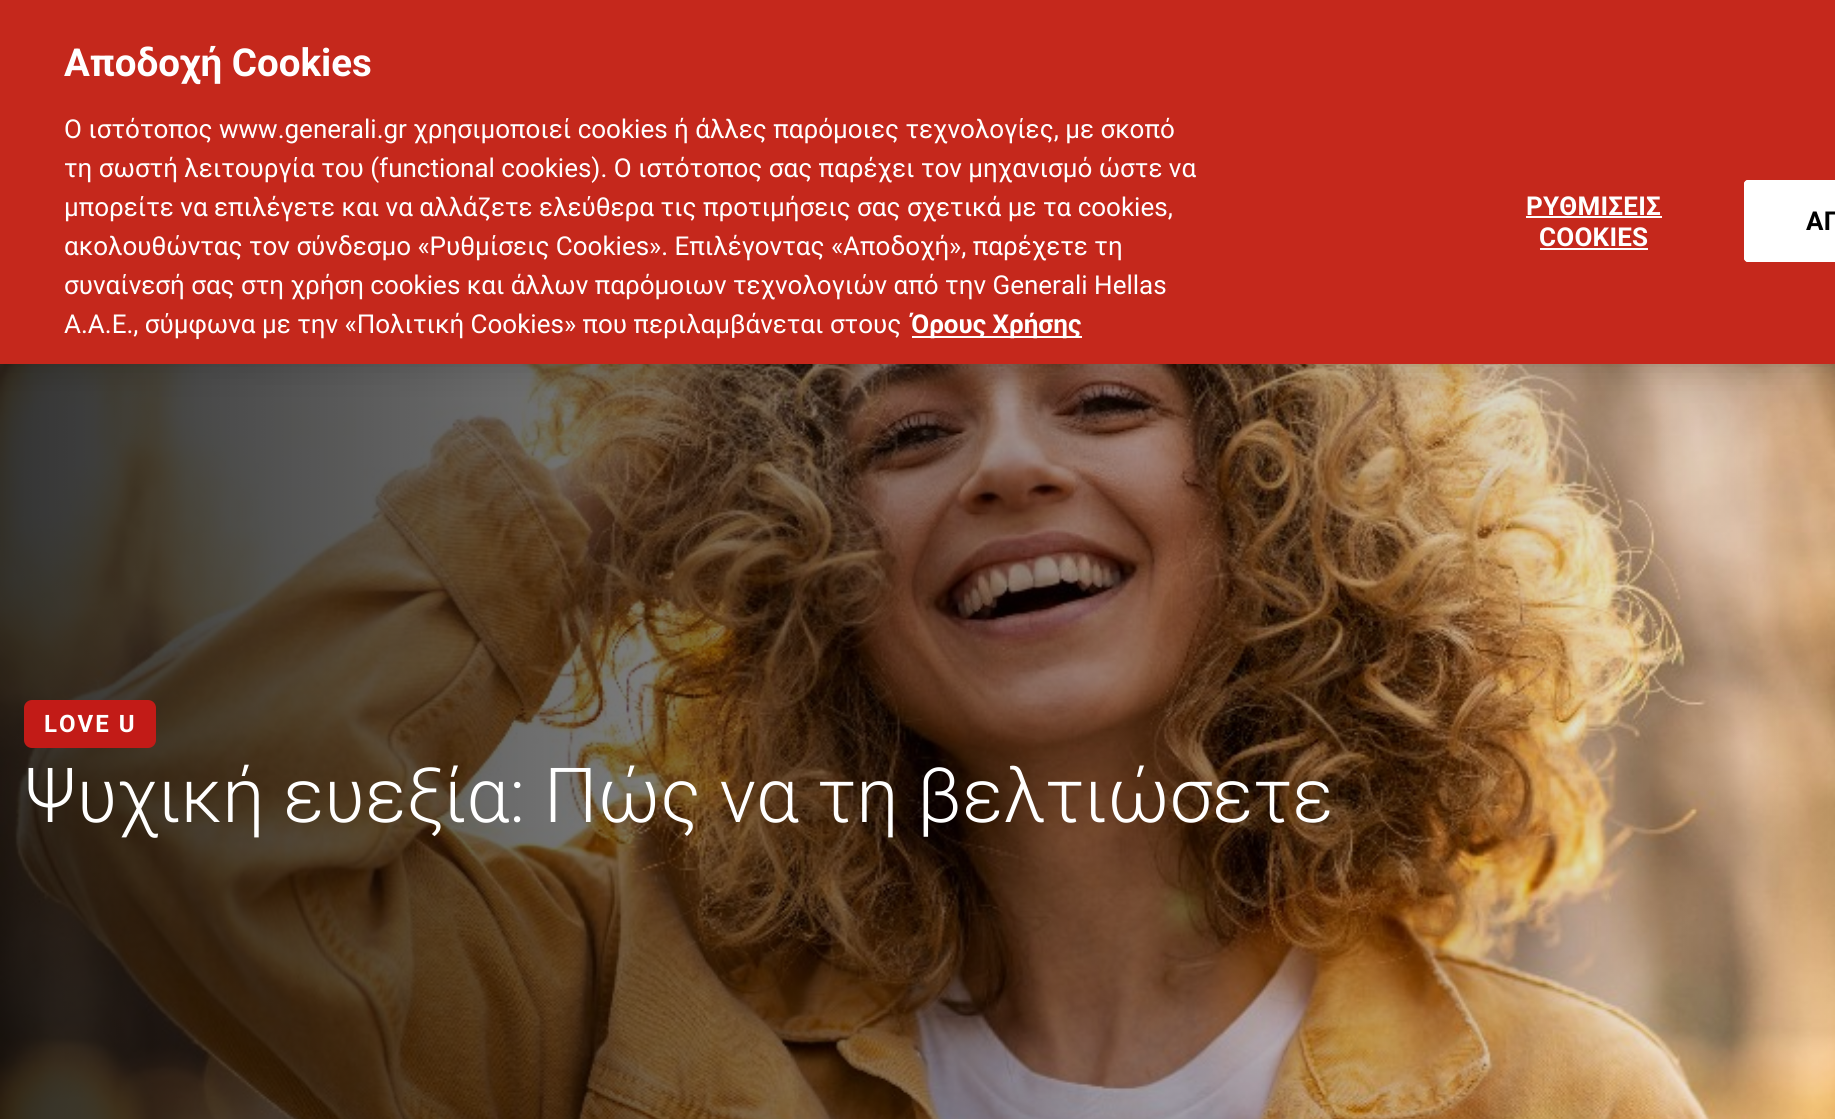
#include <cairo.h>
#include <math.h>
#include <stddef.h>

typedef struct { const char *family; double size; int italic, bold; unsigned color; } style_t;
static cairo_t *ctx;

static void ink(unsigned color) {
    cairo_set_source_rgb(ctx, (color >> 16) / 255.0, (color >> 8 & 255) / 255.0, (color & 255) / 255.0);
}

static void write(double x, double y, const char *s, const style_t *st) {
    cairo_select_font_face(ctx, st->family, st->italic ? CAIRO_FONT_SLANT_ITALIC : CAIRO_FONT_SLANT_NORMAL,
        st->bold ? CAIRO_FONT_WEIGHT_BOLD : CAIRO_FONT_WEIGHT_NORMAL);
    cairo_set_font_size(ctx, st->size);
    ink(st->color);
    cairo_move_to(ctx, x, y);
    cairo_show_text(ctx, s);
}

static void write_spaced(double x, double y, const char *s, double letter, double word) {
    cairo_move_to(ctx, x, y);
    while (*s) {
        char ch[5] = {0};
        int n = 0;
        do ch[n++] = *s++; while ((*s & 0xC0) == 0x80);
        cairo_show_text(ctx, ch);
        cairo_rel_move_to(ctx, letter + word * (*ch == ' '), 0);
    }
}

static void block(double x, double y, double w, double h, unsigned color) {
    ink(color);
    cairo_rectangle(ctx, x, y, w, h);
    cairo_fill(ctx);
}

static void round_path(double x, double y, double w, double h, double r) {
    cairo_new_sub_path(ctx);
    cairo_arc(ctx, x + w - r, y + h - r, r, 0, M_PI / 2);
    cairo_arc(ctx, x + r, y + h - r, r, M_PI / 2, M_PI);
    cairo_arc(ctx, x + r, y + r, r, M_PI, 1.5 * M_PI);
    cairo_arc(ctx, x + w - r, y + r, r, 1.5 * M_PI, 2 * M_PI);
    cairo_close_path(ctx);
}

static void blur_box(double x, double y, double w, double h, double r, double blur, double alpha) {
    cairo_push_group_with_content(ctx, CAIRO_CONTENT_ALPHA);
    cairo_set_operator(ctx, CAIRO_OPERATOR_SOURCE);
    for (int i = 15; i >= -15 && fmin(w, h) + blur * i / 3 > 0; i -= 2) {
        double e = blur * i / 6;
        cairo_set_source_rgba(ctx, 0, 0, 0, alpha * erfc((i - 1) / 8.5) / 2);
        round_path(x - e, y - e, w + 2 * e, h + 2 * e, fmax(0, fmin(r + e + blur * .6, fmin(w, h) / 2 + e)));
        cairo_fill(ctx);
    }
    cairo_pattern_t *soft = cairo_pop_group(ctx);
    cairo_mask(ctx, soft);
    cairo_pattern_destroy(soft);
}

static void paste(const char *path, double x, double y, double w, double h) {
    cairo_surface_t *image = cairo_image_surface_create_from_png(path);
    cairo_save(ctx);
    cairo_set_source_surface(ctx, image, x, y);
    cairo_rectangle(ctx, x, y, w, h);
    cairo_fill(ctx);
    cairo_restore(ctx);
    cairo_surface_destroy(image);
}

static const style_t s1 = {"Roboto", 38.5, 0, 1, 0xffffff};
static const style_t s2 = {"Roboto", 26, 0, 0, 0xffffff};
static const style_t s3 = {"Roboto", 26, 0, 1, 0xffffff};
static const style_t s4 = {"Roboto Light", 76, 0, 0, 0xffffff};

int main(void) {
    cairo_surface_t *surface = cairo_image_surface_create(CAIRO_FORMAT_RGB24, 1835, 1119);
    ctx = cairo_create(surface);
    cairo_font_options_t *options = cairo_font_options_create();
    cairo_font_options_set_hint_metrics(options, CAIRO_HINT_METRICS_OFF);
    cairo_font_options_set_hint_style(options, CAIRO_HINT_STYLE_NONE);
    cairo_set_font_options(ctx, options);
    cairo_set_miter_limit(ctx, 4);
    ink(0xffffff);
    cairo_paint(ctx);
    paste("pic1.png", 0, 364, 1835, 755);
    ink(0x000000);
    blur_box(0, 0, 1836, 364, 0, 18, 0.2);
    block(0, 0, 1835, 364, 0xc5281c);
    write(64, 76, "Αποδοχή Cookies", &s1);
    write(64, 138, "Ο ιστότοπος www.generali.gr χρησιμοποιεί cookies ή άλλες παρόμοιες τεχνολογίες, με σκοπό", &s2);
    write(64, 177, "τη σωστή λειτουργία του (functional cookies). Ο ιστότοπος σας παρέχει τον μηχανισμό ώστε να", &s2);
    write(64, 216, "μπορείτε να επιλέγετε και να αλλάζετε ελεύθερα τις προτιμήσεις σας σχετικά με τα cookies,", &s2);
    write(64, 255, "ακολουθώντας τον σύνδεσμο «Ρυθμίσεις Cookies». Επιλέγοντας «Αποδοχή», παρέχετε τη", &s2);
    write(64, 294, "συναίνεσή σας στη χρήση cookies και άλλων παρόμοιων τεχνολογιών από την Generali Hellas", &s2);
    write(64, 333, "A.A.E., σύμφωνα με την «Πολιτική Cookies» που περιλαμβάνεται στους", &s2);
    block(912, 336, 170, 2, 0xffffff);
    write(911, 333, "Όρους Χρήσης", &s3);
    write_spaced(1526, 215, "ΡΥΘΜΙΣΕΙΣ", 0.25, 0);
    block(1526, 216, 136, 2, 0xffffff);
    write_spaced(1539, 246, "COOKIES", 0.25, 0);
    block(1540, 248, 108, 2, 0xffffff);
    cairo_new_path(ctx);
    cairo_move_to(ctx, 1748, 180);
    cairo_line_to(ctx, 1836, 180);
    cairo_line_to(ctx, 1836, 262);
    cairo_line_to(ctx, 1748, 262);
    cairo_curve_to(ctx, 1746, 262, 1744, 260, 1744, 258);
    cairo_line_to(ctx, 1744, 184);
    cairo_curve_to(ctx, 1744, 182, 1746, 180, 1748, 180);
    cairo_close_path(ctx);
    cairo_fill(ctx);
    round_path(1745, 181, 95, 80, 3);
    cairo_stroke(ctx);
    ink(0x000000);
    write_spaced(1806, 230, "ΑΠ", 0.25, 0);
    ink(0xc21b17);
    round_path(24, 700, 132, 48, 8);
    cairo_fill(ctx);
    cairo_set_font_size(ctx, 24);
    ink(0xffffff);
    write_spaced(44, 732, "LOVE U", 2, 0);
    write(24, 822, "Ψυχική ευεξία: Πώς να τη βελτιώσετε", &s4);
    cairo_surface_write_to_png(surface, "screenshot.png");
    cairo_font_options_destroy(options);
    cairo_destroy(ctx);
    cairo_surface_destroy(surface);
    return 0;
}
